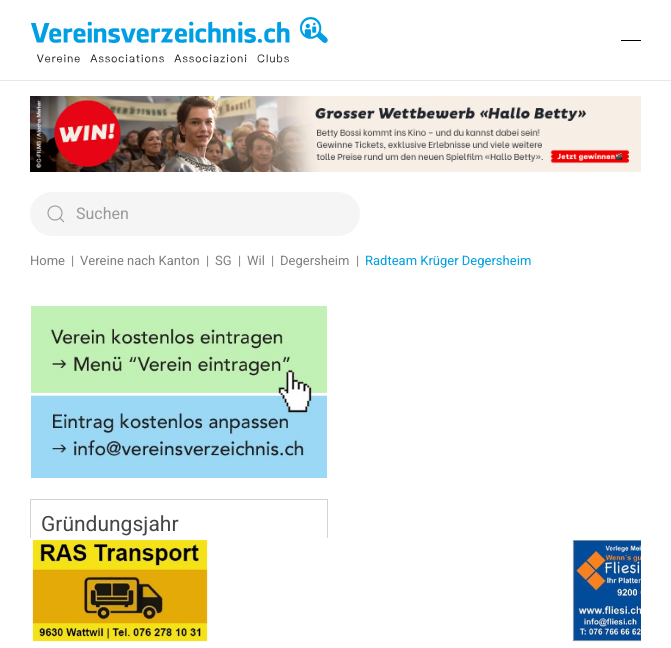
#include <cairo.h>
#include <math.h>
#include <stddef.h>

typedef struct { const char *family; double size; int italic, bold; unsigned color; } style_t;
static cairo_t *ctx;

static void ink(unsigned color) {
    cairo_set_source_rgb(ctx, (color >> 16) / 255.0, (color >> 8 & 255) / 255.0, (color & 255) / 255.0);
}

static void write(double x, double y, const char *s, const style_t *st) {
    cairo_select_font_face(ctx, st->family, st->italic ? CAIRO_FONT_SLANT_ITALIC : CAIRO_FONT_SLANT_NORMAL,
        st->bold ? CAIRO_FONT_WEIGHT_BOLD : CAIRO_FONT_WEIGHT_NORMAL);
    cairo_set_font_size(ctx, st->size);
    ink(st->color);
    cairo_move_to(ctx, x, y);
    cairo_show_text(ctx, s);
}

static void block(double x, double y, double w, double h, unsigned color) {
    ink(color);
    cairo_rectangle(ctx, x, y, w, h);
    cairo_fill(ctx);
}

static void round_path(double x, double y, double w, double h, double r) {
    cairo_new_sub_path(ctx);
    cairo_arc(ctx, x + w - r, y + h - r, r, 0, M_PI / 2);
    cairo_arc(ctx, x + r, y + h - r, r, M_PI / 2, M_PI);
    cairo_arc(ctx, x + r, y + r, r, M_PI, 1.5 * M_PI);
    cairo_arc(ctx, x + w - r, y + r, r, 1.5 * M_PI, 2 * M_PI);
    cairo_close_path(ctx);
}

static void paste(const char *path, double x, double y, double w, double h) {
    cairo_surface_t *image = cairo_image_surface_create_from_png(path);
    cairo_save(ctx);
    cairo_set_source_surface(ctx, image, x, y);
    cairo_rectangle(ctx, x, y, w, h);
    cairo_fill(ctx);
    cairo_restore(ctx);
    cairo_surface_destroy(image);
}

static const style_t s1 = {"Heebo", 16, 0, 0, 0x999999};
static const style_t s2 = {"Heebo", 13, 0, 0, 0x818080};
static const style_t s3 = {"Heebo", 13, 0, 0, 0x009fe3};
static const style_t s4 = {"Heebo", 21, 0, 0, 0x464646};

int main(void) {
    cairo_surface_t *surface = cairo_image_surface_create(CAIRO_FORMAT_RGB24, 671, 648);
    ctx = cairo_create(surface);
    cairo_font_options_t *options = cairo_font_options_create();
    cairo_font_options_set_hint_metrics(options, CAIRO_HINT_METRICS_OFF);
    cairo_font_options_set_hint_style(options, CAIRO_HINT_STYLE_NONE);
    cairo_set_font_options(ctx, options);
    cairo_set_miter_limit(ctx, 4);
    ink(0xffffff);
    cairo_paint(ctx);
    block(0, 80, 671, 1, 0xe8e8e8);
    paste("pic1.png", 31, 17, 297, 46);
    block(621, 40, 20, 1, 0x000000);
    paste("pic2.png", 30, 96, 611, 76);
    ink(0xf5f5f5);
    round_path(30, 192, 330, 44, 22);
    cairo_fill(ctx);
    cairo_arc(ctx, 55, 213, 7, 0, 2 * M_PI);
    ink(0x999999);
    cairo_set_line_width(ctx, 1.1);
    cairo_stroke(ctx);
    cairo_new_path(ctx);
    cairo_move_to(ctx, 60, 218);
    cairo_line_to(ctx, 64, 222);
    cairo_close_path(ctx);
    cairo_stroke(ctx);
    write(76, 219, "Suchen", &s1);
    write(30, 265, "Home", &s2);
    write(71, 265, "|", &s2);
    write(80, 265, "Vereine nach Kanton", &s2);
    write(206, 265, "|", &s2);
    write(215, 265, "SG", &s2);
    write(238, 265, "|", &s2);
    write(247, 265, "Wil", &s2);
    write(271, 265, "|", &s2);
    write(280, 265, "Degersheim", &s2);
    write(356, 265, "|", &s2);
    write(365, 265, "Radteam Krüger Degersheim", &s3);
    paste("pic3.png", 31, 306, 296, 172);
    cairo_rectangle(ctx, 30.5, 499.5, 297, 95);
    ink(0xd2d3d4);
    cairo_set_line_width(ctx, 1);
    cairo_stroke(ctx);
    write(41, 531, "Gründungsjahr", &s4);
    block(30, 538, 298, 57, 0xffffff);
    paste("pic4.png", 32, 540, 176, 102);
    paste("pic5.png", 572, 540, 69, 102);
    cairo_surface_write_to_png(surface, "screenshot.png");
    cairo_font_options_destroy(options);
    cairo_destroy(ctx);
    cairo_surface_destroy(surface);
    return 0;
}
